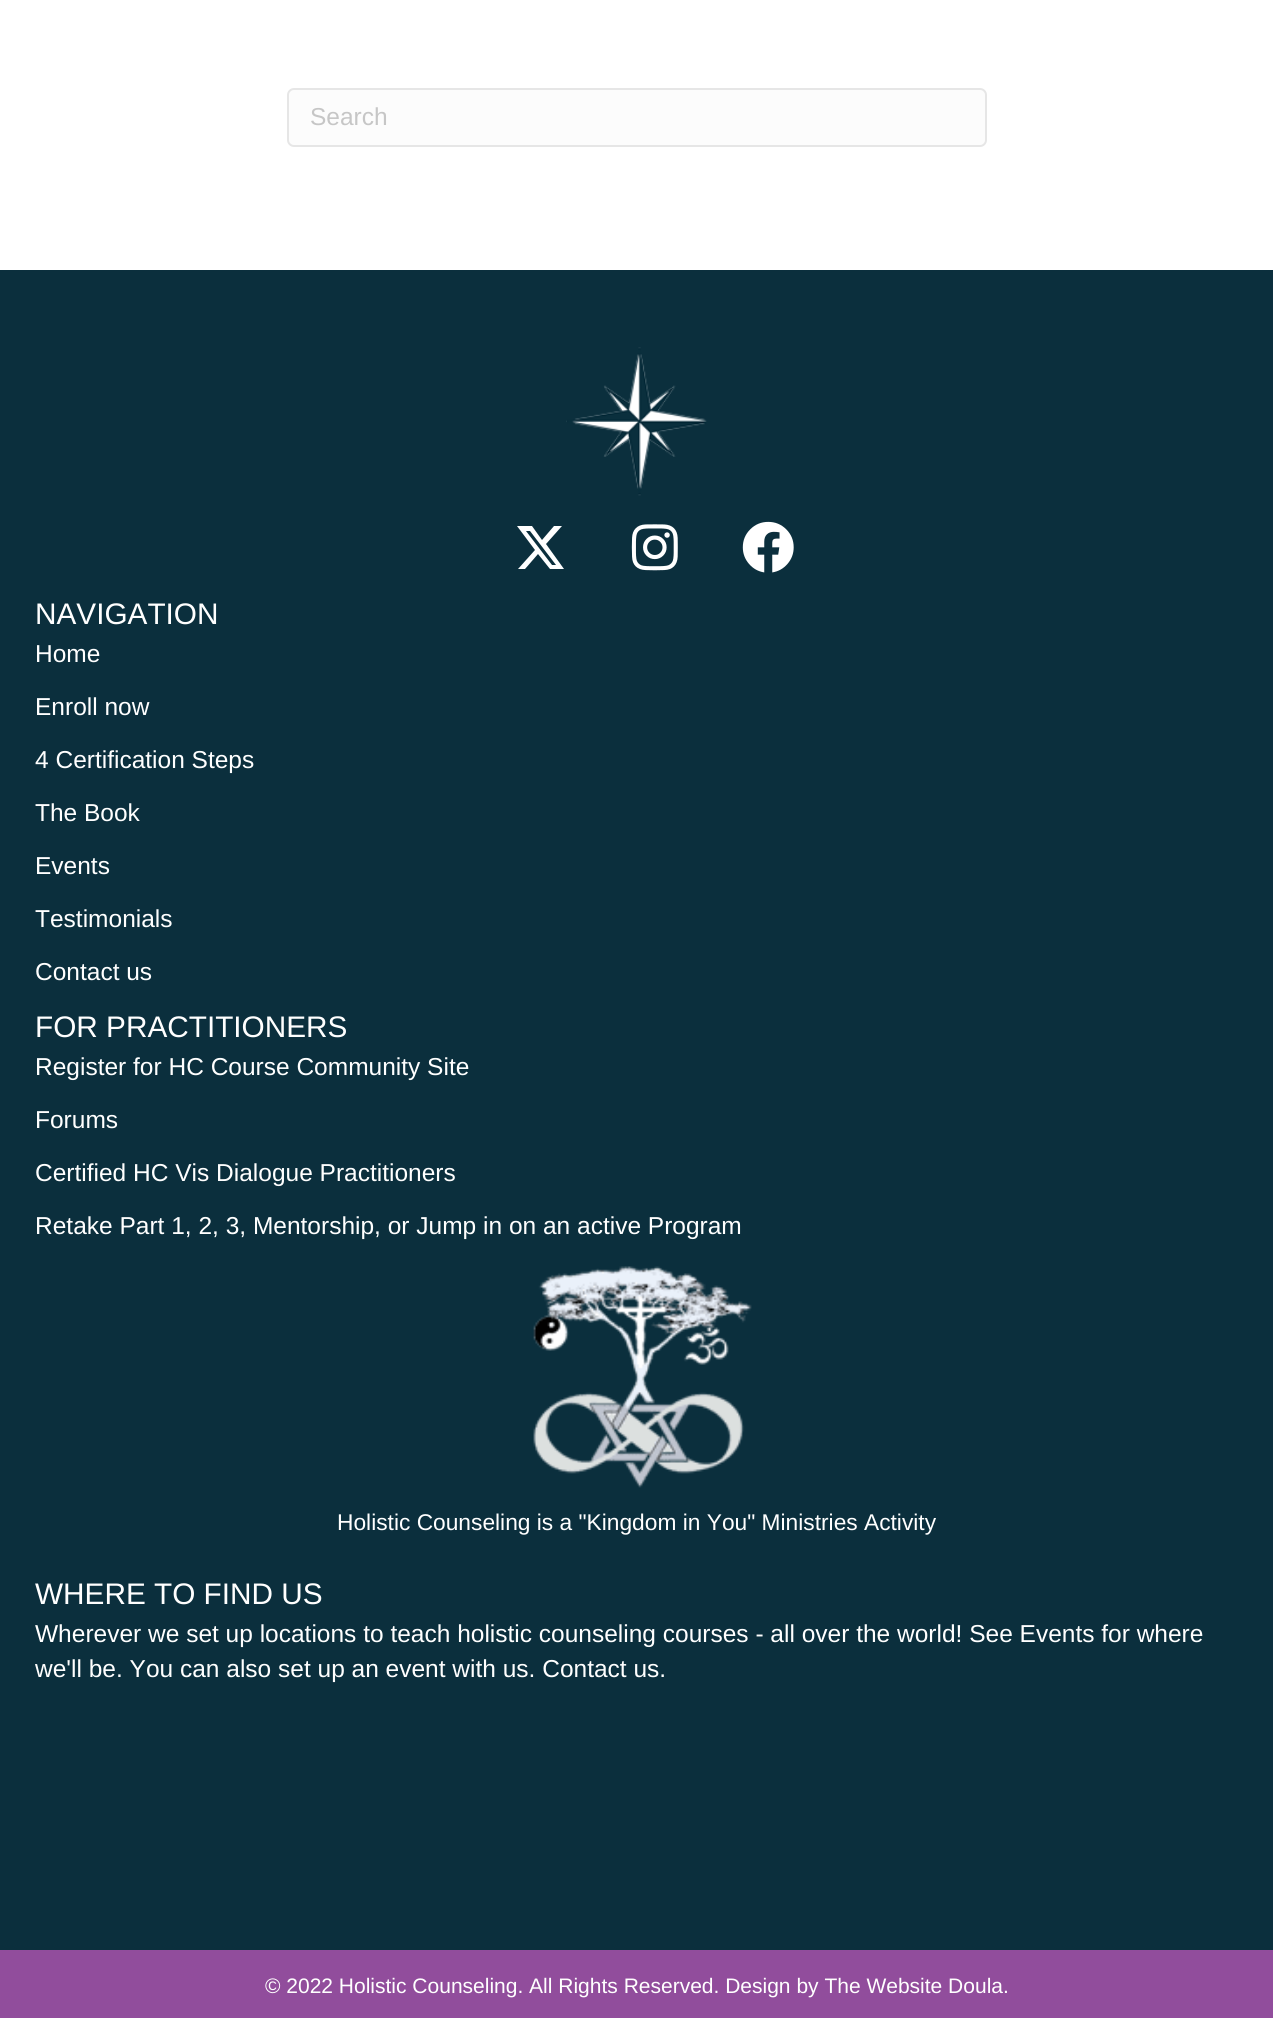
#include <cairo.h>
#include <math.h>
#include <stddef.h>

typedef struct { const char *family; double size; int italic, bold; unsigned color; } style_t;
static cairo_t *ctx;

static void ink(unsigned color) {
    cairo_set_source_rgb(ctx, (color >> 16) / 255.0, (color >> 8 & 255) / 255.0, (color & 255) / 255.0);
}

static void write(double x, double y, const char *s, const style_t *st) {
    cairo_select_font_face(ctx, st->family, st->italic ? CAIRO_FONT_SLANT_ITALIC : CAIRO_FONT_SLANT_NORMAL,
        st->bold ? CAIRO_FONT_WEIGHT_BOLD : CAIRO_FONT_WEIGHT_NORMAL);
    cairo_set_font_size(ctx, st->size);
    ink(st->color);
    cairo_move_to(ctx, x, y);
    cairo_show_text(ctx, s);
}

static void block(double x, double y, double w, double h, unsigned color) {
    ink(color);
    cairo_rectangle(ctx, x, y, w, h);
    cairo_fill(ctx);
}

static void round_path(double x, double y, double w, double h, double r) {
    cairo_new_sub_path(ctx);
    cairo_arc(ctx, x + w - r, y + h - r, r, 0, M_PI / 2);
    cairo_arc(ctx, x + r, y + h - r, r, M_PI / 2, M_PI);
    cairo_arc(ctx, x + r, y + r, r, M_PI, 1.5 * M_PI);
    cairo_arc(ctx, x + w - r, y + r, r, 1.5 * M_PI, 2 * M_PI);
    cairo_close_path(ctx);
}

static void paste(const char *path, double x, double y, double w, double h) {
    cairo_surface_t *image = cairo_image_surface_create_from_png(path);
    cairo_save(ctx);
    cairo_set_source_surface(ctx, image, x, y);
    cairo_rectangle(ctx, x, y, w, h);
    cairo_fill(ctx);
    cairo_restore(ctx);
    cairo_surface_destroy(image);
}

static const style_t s1 = {"Liberation Sans", 24.5, 0, 0, 0xc6c6c6};
static const style_t s2 = {"Liberation Sans", 29.75, 0, 0, 0xffffff};
static const style_t s3 = {"Liberation Sans", 24.5, 0, 0, 0xffffff};
static const style_t s4 = {"Liberation Sans", 22.75, 0, 0, 0xffffff};
static const style_t s5 = {"Liberation Sans", 21, 0, 0, 0xffffff};

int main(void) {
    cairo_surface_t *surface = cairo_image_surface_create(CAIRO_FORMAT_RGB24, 1273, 2018);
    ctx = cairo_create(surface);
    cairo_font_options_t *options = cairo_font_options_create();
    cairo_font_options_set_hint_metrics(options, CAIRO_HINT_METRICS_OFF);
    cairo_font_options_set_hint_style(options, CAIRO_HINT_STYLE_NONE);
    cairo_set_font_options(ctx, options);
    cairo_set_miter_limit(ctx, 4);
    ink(0xffffff);
    cairo_paint(ctx);
    ink(0xfcfcfc);
    round_path(288, 89, 698, 57, 6);
    cairo_fill_preserve(ctx);
    ink(0xe6e6e6);
    cairo_stroke(ctx);
    write(310, 125, "Search", &s1);
    block(0, 270, 1273, 1680, 0x0b2f3d);
    paste("pic1.png", 566, 347, 141, 149);
    ink(0xffffff);
    cairo_new_path(ctx);
    cairo_move_to(ctx, 554, 526);
    cairo_line_to(ctx, 562, 526);
    cairo_line_to(ctx, 546, 544);
    cairo_line_to(ctx, 564, 569);
    cairo_line_to(ctx, 550, 569);
    cairo_line_to(ctx, 538, 554);
    cairo_line_to(ctx, 525, 569);
    cairo_line_to(ctx, 518, 569);
    cairo_line_to(ctx, 535, 550);
    cairo_line_to(ctx, 517, 526);
    cairo_line_to(ctx, 532, 526);
    cairo_line_to(ctx, 542, 540);
    cairo_close_path(ctx);
    cairo_move_to(ctx, 552, 565);
    cairo_line_to(ctx, 556, 565);
    cairo_line_to(ctx, 530, 531);
    cairo_line_to(ctx, 526, 531);
    cairo_close_path(ctx);
    cairo_fill(ctx);
    paste("pic2.png", 631, 524, 47, 47);
    paste("pic3.png", 742, 521, 52, 52);
    write(35, 624, "NAVIGATION", &s2);
    write(35, 662, "Home", &s3);
    write(35, 715, "Enroll now", &s3);
    write(35, 768, "4 Certification Steps", &s3);
    write(35, 821, "The Book", &s3);
    write(35, 874, "Events", &s3);
    write(35, 927, "Testimonials", &s3);
    write(35, 980, "Contact us", &s3);
    write(35, 1037, "FOR PRACTITIONERS", &s2);
    write(35, 1075, "Register for HC Course Community Site", &s3);
    write(35, 1128, "Forums", &s3);
    write(35, 1181, "Certified HC Vis Dialogue Practitioners", &s3);
    write(35, 1234, "Retake Part 1, 2, 3, Mentorship, or Jump in on an active Program", &s3);
    paste("pic4.png", 533, 1266, 219, 222);
    write(337, 1530, "Holistic Counseling is a \"Kingdom in You\" Ministries Activity", &s4);
    write(35, 1604, "WHERE TO FIND US", &s2);
    write(35, 1642, "Wherever we set up locations to teach holistic counseling courses - all over the world! See Events for where", &s3);
    write(35, 1677, "we'll be. You can also set up an event with us. Contact us.", &s3);
    block(0, 1950, 1273, 68, 0x914d9c);
    write(265, 1993, "© 2022 Holistic Counseling. All Rights Reserved. Design by The Website Doula.", &s5);
    cairo_surface_write_to_png(surface, "screenshot.png");
    cairo_font_options_destroy(options);
    cairo_destroy(ctx);
    cairo_surface_destroy(surface);
    return 0;
}
